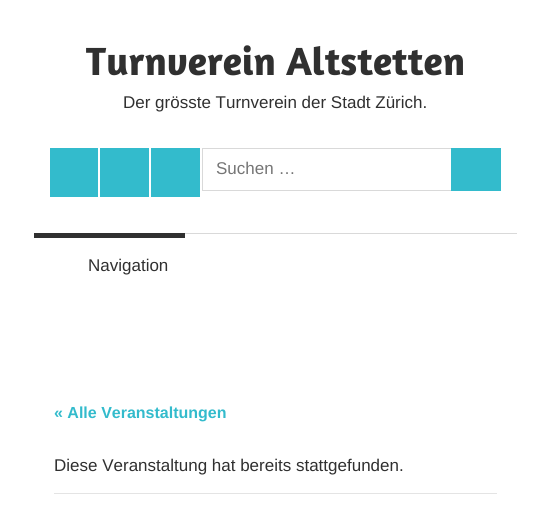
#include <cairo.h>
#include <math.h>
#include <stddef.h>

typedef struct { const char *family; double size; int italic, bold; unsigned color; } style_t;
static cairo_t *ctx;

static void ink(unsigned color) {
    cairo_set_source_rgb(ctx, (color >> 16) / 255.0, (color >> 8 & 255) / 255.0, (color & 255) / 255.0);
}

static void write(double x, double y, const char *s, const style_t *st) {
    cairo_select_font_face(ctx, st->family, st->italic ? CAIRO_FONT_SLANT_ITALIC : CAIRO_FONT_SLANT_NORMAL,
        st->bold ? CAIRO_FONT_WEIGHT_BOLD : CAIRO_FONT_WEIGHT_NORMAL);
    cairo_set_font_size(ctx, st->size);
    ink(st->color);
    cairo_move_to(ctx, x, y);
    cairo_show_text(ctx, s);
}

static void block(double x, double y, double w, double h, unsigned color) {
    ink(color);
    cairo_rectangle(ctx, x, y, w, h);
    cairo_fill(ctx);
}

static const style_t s1 = {"Amaranth", 40, 0, 1, 0x303030};
static const style_t s2 = {"Liberation Sans", 17, 0, 0, 0x303030};
static const style_t s3 = {"Liberation Sans", 17, 0, 0, 0x757575};
static const style_t s4 = {"Liberation Sans", 16, 0, 1, 0x33bbcc};

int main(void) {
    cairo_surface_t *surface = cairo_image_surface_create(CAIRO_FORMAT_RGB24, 551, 508);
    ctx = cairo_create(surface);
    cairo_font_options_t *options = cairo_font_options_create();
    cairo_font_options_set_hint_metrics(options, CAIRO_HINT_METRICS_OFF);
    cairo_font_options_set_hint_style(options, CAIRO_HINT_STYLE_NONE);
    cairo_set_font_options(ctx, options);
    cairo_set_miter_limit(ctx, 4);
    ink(0xffffff);
    cairo_paint(ctx);
    write(86, 75, "Turnverein Altstetten", &s1);
    write(123, 108, "Der grösste Turnverein der Stadt Zürich.", &s2);
    block(50, 148, 48, 49, 0x33bbcc);
    block(100, 148, 49, 49, 0x33bbcc);
    block(151, 148, 49, 49, 0x33bbcc);
    cairo_rectangle(ctx, 202.5, 148.5, 249, 42);
    ink(0xd9d9d9);
    cairo_set_line_width(ctx, 1);
    cairo_stroke(ctx);
    write(216, 174, "Suchen …", &s3);
    block(451, 148, 50, 43, 0x33bbcc);
    block(185, 233, 332, 1, 0xd9d9d9);
    block(34, 233, 151, 5, 0x303030);
    write(88, 271, "Navigation", &s2);
    write(54, 418, "« Alle Veranstaltungen", &s4);
    block(54, 493, 443, 1, 0xe4e4e4);
    write(54, 471, "Diese Veranstaltung hat bereits stattgefunden.", &s2);
    cairo_surface_write_to_png(surface, "screenshot.png");
    cairo_font_options_destroy(options);
    cairo_destroy(ctx);
    cairo_surface_destroy(surface);
    return 0;
}
